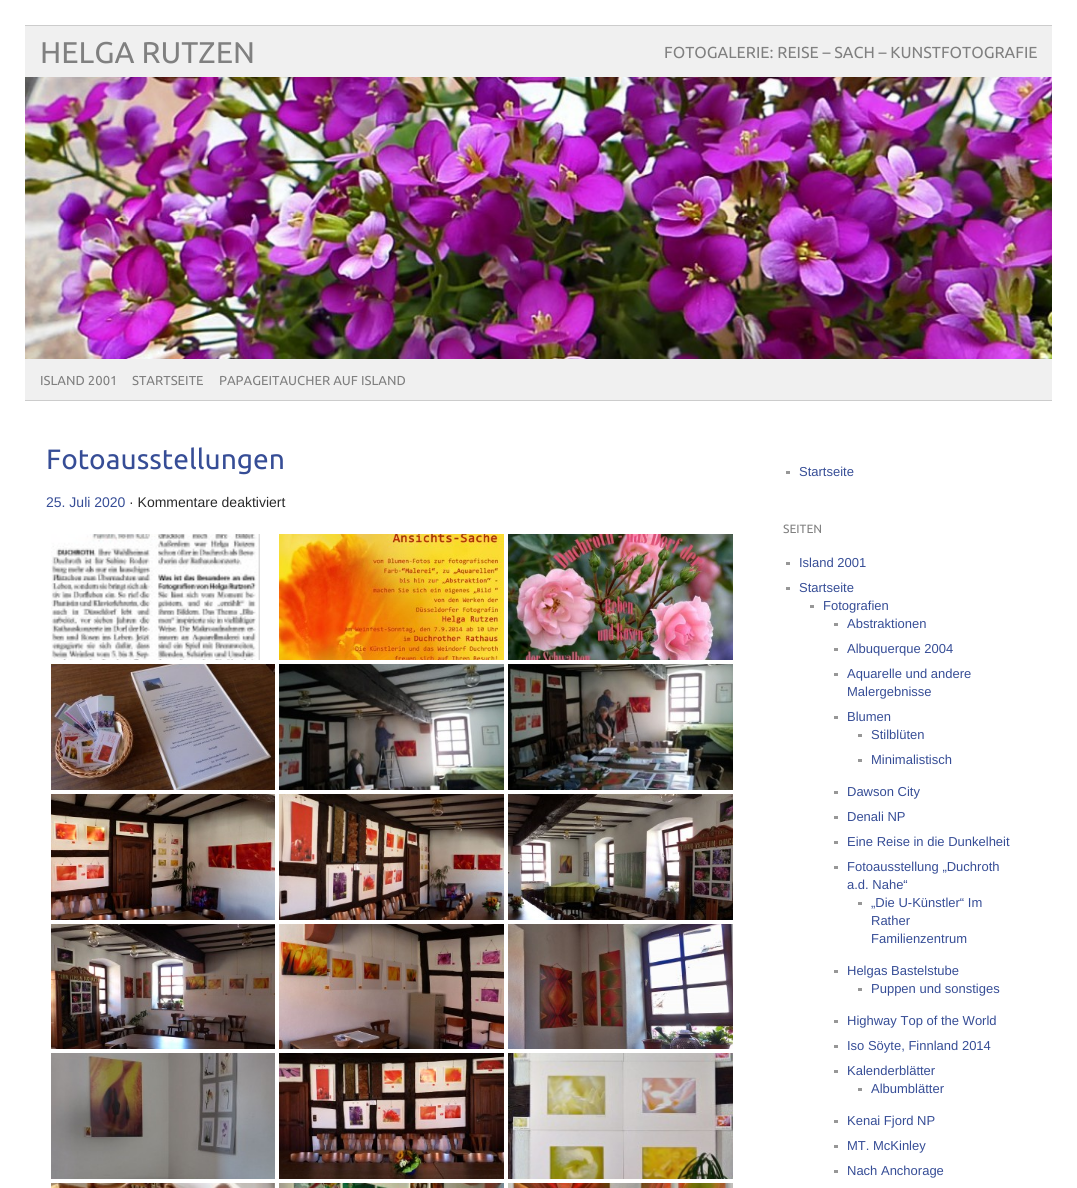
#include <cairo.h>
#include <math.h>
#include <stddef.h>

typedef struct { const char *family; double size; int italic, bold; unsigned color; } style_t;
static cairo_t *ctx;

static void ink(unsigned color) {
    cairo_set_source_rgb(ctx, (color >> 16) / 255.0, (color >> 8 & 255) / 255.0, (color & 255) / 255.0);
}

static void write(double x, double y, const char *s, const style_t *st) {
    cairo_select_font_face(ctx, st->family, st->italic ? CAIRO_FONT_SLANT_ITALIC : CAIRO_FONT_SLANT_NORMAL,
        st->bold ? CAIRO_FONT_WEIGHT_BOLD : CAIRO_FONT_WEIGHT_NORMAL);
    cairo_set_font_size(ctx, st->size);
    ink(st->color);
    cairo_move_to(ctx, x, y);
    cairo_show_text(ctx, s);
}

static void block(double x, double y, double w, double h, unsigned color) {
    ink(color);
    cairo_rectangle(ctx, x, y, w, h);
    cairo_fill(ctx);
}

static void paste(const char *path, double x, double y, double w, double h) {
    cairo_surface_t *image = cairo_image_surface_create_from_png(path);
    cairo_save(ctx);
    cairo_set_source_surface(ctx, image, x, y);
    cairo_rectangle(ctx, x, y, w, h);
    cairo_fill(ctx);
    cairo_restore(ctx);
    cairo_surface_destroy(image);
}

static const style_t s1 = {"Ubuntu", 30, 0, 0, 0x808080};
static const style_t s2 = {"Ubuntu", 16, 0, 0, 0x808080};
static const style_t s3 = {"Ubuntu", 13, 0, 0, 0x808080};
static const style_t s4 = {"Ubuntu", 28, 0, 0, 0x364d96};
static const style_t s5 = {"Liberation Sans", 14, 0, 0, 0x364d96};
static const style_t s6 = {"Liberation Sans", 14, 0, 0, 0x292929};
static const style_t s7 = {"Liberation Sans", 13, 0, 0, 0x364d96};
static const style_t s8 = {"Ubuntu", 12, 0, 0, 0x808080};

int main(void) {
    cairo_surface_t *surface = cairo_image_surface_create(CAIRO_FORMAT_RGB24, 1077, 1188);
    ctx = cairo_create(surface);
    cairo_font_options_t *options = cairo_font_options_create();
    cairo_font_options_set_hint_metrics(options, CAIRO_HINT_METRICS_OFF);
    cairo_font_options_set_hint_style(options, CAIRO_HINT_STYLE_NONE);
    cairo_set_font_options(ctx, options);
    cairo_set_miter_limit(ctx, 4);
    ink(0xffffff);
    cairo_paint(ctx);
    block(25, 26, 1027, 374, 0xf0f0f0);
    block(25, 25, 1027, 1, 0xcccccc);
    block(421, 400, 631, 1, 0xcccccc);
    write(40, 63, "HELGA RUTZEN", &s1);
    write(664, 58, "FOTOGALERIE: REISE – SACH – KUNSTFOTOGRAFIE", &s2);
    paste("pic1.png", 25, 77, 1027, 282);
    block(25, 400, 396, 1, 0xcccccc);
    write(40, 385, "ISLAND 2001", &s3);
    write(132, 385, "STARTSEITE", &s3);
    write(219, 385, "PAPAGEITAUCHER AUF ISLAND", &s3);
    write(46, 469, "Fotoausstellungen", &s4);
    write(46, 507, "25. Juli 2020", &s5);
    write(129, 507, "· Kommentare deaktiviert", &s6);
    paste("pic2.png", 51, 534, 209, 126);
    paste("pic3.png", 279, 534, 225, 126);
    paste("pic4.png", 508, 534, 225, 126);
    paste("pic5.png", 51, 664, 224, 126);
    paste("pic6.png", 279, 664, 225, 126);
    paste("pic7.png", 508, 664, 225, 126);
    paste("pic8.png", 51, 794, 224, 126);
    paste("pic9.png", 279, 794, 225, 126);
    paste("pic10.png", 508, 794, 225, 126);
    paste("pic11.png", 51, 924, 224, 125);
    paste("pic12.png", 279, 924, 225, 125);
    paste("pic13.png", 508, 924, 225, 125);
    paste("pic14.png", 51, 1053, 224, 126);
    paste("pic15.png", 279, 1053, 225, 126);
    paste("pic16.png", 508, 1053, 225, 126);
    paste("pic17.png", 51, 1183, 224, 5);
    paste("pic18.png", 279, 1183, 225, 5);
    paste("pic19.png", 508, 1183, 225, 5);
    block(786, 471, 4, 3, 0x979797);
    write(799, 476, "Startseite", &s7);
    write(783, 533, "SEITEN", &s8);
    block(786, 562, 4, 3, 0x979797);
    write(799, 567, "Island 2001", &s7);
    block(786, 587, 4, 3, 0x979797);
    write(799, 592, "Startseite", &s7);
    block(810, 605, 4, 3, 0x979797);
    write(823, 610, "Fotografien", &s7);
    block(834, 623, 4, 3, 0x979797);
    write(847, 628, "Abstraktionen", &s7);
    block(834, 648, 4, 3, 0x979797);
    write(847, 653, "Albuquerque 2004", &s7);
    block(834, 673, 4, 3, 0x979797);
    write(847, 678, "Aquarelle und andere", &s7);
    write(847, 696, "Malergebnisse", &s7);
    block(834, 716, 4, 3, 0x979797);
    write(847, 721, "Blumen", &s7);
    block(858, 734, 4, 3, 0x979797);
    write(871, 739, "Stilblüten", &s7);
    block(858, 759, 4, 3, 0x979797);
    write(871, 764, "Minimalistisch", &s7);
    block(834, 791, 4, 3, 0x979797);
    write(847, 796, "Dawson City", &s7);
    block(834, 816, 4, 3, 0x979797);
    write(847, 821, "Denali NP", &s7);
    block(834, 841, 4, 3, 0x979797);
    write(847, 846, "Eine Reise in die Dunkelheit", &s7);
    block(834, 866, 4, 3, 0x979797);
    write(847, 871, "Fotoausstellung „Duchroth", &s7);
    write(847, 889, "a.d. Nahe“", &s7);
    block(858, 902, 4, 3, 0x979797);
    write(871, 907, "„Die U-Künstler“ Im", &s7);
    write(871, 925, "Rather", &s7);
    write(871, 943, "Familienzentrum", &s7);
    block(834, 970, 4, 3, 0x979797);
    write(847, 975, "Helgas Bastelstube", &s7);
    block(858, 988, 4, 3, 0x979797);
    write(871, 993, "Puppen und sonstiges", &s7);
    block(834, 1020, 4, 3, 0x979797);
    write(847, 1025, "Highway Top of the World", &s7);
    block(834, 1045, 4, 3, 0x979797);
    write(847, 1050, "Iso Söyte, Finnland 2014", &s7);
    block(834, 1070, 4, 3, 0x979797);
    write(847, 1075, "Kalenderblätter", &s7);
    block(858, 1088, 4, 3, 0x979797);
    write(871, 1093, "Albumblätter", &s7);
    block(834, 1120, 4, 3, 0x979797);
    write(847, 1125, "Kenai Fjord NP", &s7);
    block(834, 1145, 4, 3, 0x979797);
    write(847, 1150, "MT. McKinley", &s7);
    block(834, 1170, 4, 3, 0x979797);
    write(847, 1175, "Nach Anchorage", &s7);
    cairo_surface_write_to_png(surface, "screenshot.png");
    cairo_font_options_destroy(options);
    cairo_destroy(ctx);
    cairo_surface_destroy(surface);
    return 0;
}
